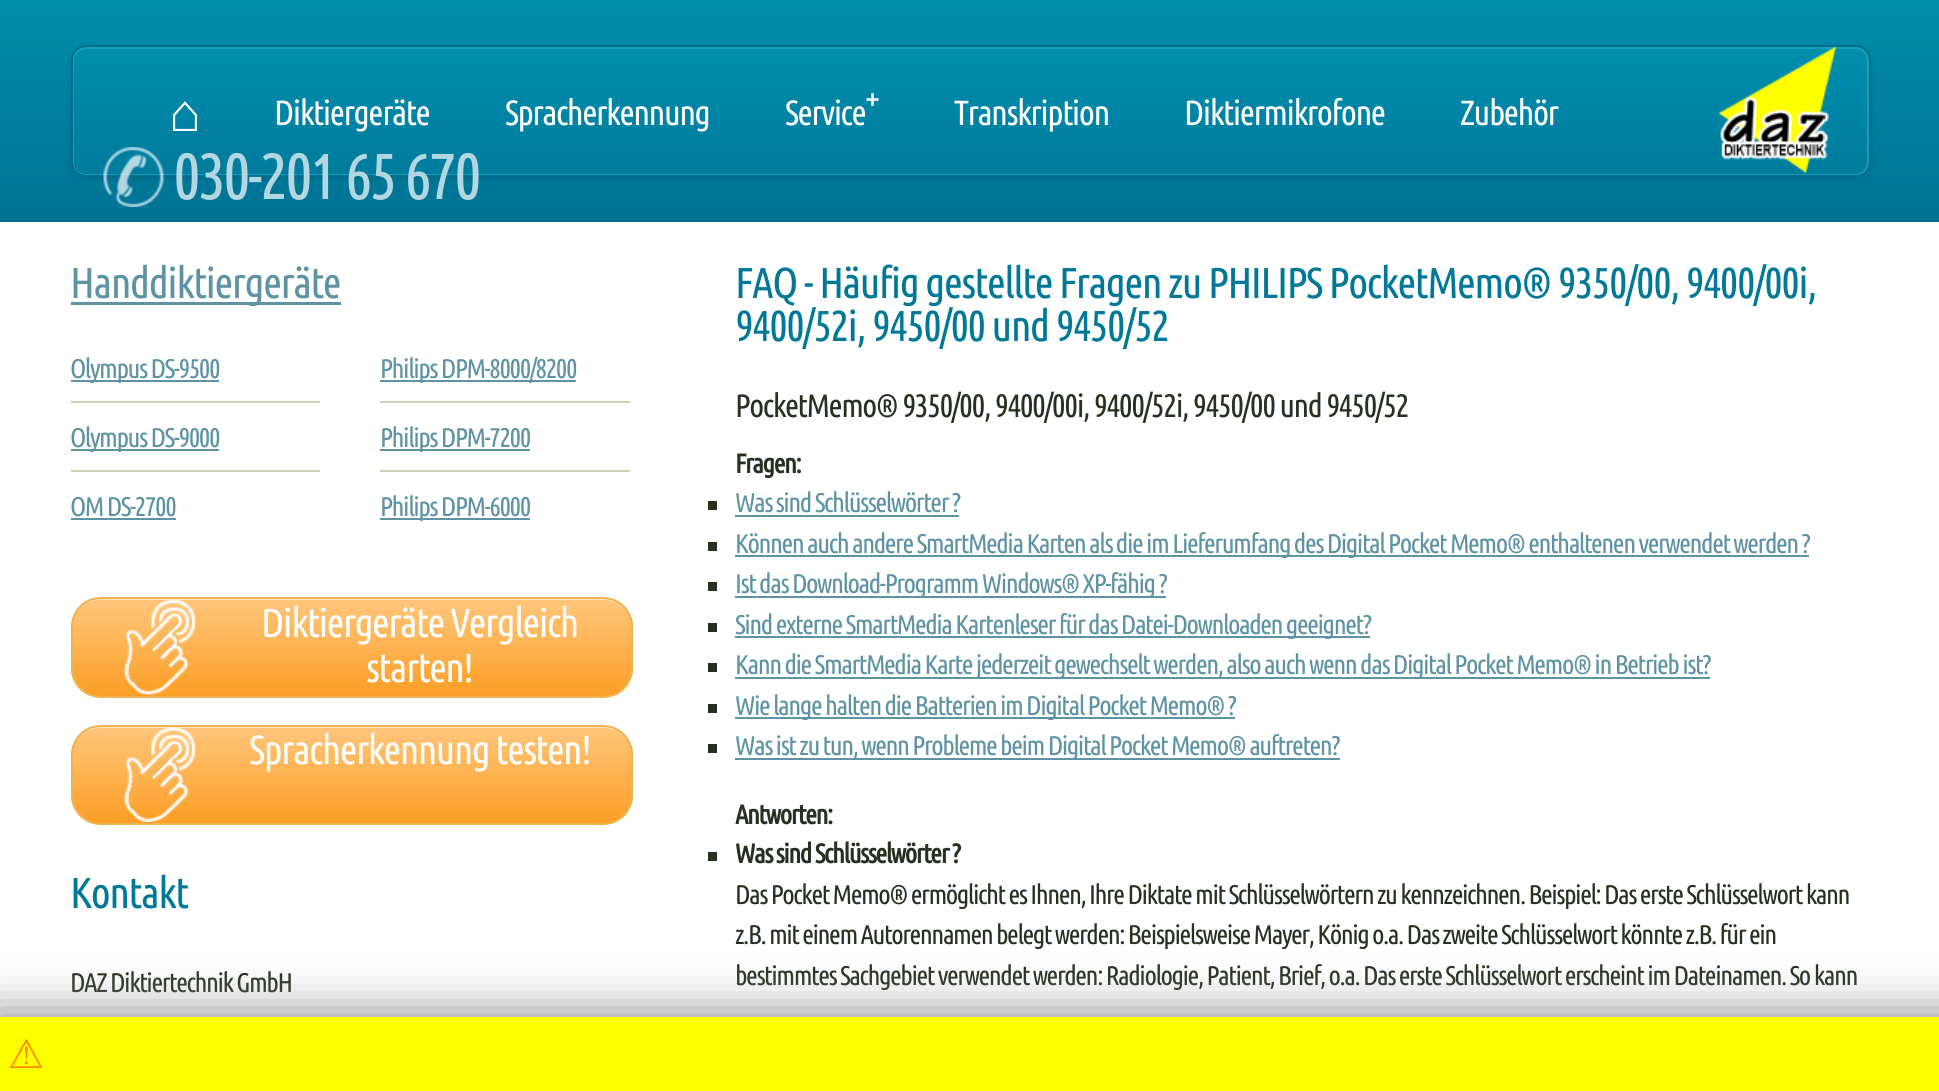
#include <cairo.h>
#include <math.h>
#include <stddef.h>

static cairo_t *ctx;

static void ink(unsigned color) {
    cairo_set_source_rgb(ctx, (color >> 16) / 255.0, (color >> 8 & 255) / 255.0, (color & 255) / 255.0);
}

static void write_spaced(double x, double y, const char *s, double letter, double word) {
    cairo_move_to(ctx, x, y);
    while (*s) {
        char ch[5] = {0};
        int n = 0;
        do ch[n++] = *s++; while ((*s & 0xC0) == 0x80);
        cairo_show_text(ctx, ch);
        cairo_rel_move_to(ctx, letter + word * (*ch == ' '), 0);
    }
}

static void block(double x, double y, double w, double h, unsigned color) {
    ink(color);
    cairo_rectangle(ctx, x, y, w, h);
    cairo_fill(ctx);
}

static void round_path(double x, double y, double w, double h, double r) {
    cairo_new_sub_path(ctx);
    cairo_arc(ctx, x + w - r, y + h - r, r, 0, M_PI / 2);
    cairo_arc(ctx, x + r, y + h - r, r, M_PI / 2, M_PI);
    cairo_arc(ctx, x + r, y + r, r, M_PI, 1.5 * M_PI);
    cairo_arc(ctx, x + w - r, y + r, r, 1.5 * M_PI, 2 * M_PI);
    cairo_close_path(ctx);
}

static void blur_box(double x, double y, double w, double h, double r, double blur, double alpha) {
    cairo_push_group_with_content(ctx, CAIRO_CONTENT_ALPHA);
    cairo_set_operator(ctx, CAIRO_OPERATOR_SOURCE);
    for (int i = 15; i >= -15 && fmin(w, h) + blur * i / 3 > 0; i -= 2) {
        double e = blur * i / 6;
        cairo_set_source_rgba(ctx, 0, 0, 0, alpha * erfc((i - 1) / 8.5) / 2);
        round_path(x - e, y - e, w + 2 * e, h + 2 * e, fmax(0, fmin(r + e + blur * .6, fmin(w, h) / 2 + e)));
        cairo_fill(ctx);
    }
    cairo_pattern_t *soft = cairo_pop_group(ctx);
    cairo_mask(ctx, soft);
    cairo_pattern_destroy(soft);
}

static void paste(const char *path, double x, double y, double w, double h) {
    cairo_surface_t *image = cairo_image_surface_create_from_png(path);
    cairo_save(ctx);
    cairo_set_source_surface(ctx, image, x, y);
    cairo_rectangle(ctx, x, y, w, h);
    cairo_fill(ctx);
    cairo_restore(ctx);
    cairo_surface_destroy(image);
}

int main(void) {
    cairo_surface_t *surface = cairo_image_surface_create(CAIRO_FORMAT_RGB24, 1939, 1091);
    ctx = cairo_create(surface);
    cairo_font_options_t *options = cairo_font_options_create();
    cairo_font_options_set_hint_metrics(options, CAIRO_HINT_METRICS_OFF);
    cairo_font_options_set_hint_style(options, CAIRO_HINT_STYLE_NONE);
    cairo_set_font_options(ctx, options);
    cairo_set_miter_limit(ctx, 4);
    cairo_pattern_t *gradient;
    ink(0xffffff);
    cairo_paint(ctx);
    gradient = cairo_pattern_create_linear(0, 0, 0, 222);
    cairo_pattern_add_color_stop_rgba(gradient, 0, 0, 0.553, 0.671, 1);
    cairo_pattern_add_color_stop_rgba(gradient, 1, 0, 0.447, 0.58, 1);
    cairo_set_source(ctx, gradient);
    cairo_pattern_destroy(gradient);
    cairo_rectangle(ctx, 0, 0, 1939, 222);
    cairo_fill(ctx);
    ink(0x000000);
    blur_box(71, 47, 1800, 132, 15, 3, 0.1);
    cairo_save(ctx);
    round_path(71, 45, 1800, 132, 15);
    cairo_clip(ctx);
    gradient = cairo_pattern_create_linear(72, 47, 72, 176);
    cairo_pattern_add_color_stop_rgba(gradient, 0, 0, 0.557, 0.678, 1);
    cairo_pattern_add_color_stop_rgba(gradient, 1, 0, 0.482, 0.616, 1);
    cairo_set_source(ctx, gradient);
    cairo_pattern_destroy(gradient);
    cairo_rectangle(ctx, 71, 47, 1800, 129);
    cairo_fill(ctx);
    cairo_restore(ctx);
    round_path(73, 48, 1795, 127, 13);
    ink(0x12a0bf);
    cairo_stroke(ctx);
    round_path(72, 46, 1798, 130, 14);
    ink(0x006e8b);
    cairo_stroke(ctx);
    cairo_select_font_face(ctx, "Liberation Sans", CAIRO_FONT_SLANT_NORMAL, CAIRO_FONT_WEIGHT_BOLD);
    cairo_set_font_size(ctx, 53);
    ink(0xffffff);
    write_spaced(169, 131, "⌂", -1.5, 0);
    cairo_select_font_face(ctx, "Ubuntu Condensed", CAIRO_FONT_SLANT_NORMAL, CAIRO_FONT_WEIGHT_NORMAL);
    cairo_set_font_size(ctx, 35);
    write_spaced(274, 125, "Diktiergeräte", -1.5, 0);
    write_spaced(505, 125, "Spracherkennung", -1.5, 0);
    write_spaced(785, 125, "Service", -1.5, 0);
    write_spaced(865, 110, "+", -1.5, 0);
    write_spaced(954, 125, "Transkription", -1.5, 0);
    write_spaced(1184, 125, "Diktiermikrofone", -1.5, 0);
    write_spaced(1460, 125, "Zubehör", -1.5, 0);
    paste("pic1.png", 1718, 46, 119, 128);
    paste("pic2.png", 103, 147, 61, 60);
    cairo_set_font_size(ctx, 65);
    ink(0xb3d7e1);
    write_spaced(173, 199, "030-201 65 670", -3, 0);
    block(71, 302, 270, 3, 0x5d93a2);
    cairo_set_font_size(ctx, 43.2);
    write_spaced(70, 298, "Handdiktiergeräte", -1.5, 0);
    block(71, 380, 148, 2, 0x5d93a2);
    cairo_set_font_size(ctx, 27);
    write_spaced(70, 378, "Olympus DS-9500", -1.5, 0);
    block(71, 401, 249, 2, 0xced0b7);
    block(71, 449, 148, 2, 0x5d93a2);
    write_spaced(70, 447, "Olympus DS-9000", -1.5, 0);
    block(71, 470, 249, 2, 0xced0b7);
    ink(0x5d93a2);
    write_spaced(70, 516, "OM DS-2700", -1.5, 0);
    block(71, 518, 105, 2, 0x5d93a2);
    block(380, 380, 196, 2, 0x5d93a2);
    write_spaced(380, 378, "Philips DPM-8000/8200", -1.5, 0);
    block(380, 401, 250, 2, 0xced0b7);
    block(380, 449, 150, 2, 0x5d93a2);
    write_spaced(380, 447, "Philips DPM-7200", -1.5, 0);
    block(380, 470, 250, 2, 0xced0b7);
    block(380, 518, 150, 2, 0x5d93a2);
    write_spaced(380, 516, "Philips DPM-6000", -1.5, 0);
    cairo_save(ctx);
    round_path(71, 597, 562, 101, 30);
    cairo_clip(ctx);
    gradient = cairo_pattern_create_linear(72, 599, 72, 696);
    cairo_pattern_add_color_stop_rgba(gradient, 0.05, 1, 0.769, 0.467, 1);
    cairo_pattern_add_color_stop_rgba(gradient, 1, 0.984, 0.62, 0.145, 1);
    cairo_set_source(ctx, gradient);
    cairo_pattern_destroy(gradient);
    cairo_rectangle(ctx, 71, 599, 562, 97);
    cairo_fill(ctx);
    cairo_restore(ctx);
    ink(0xfce2c1);
    cairo_new_path(ctx);
    cairo_move_to(ctx, 100, 600);
    cairo_line_to(ctx, 603, 600);
    cairo_curve_to(ctx, 619, 600, 632, 613, 632, 628);
    cairo_curve_to(ctx, 632, 612, 619, 599, 603, 599);
    cairo_line_to(ctx, 101, 599);
    cairo_curve_to(ctx, 85, 599, 72, 612, 72, 628);
    cairo_curve_to(ctx, 72, 613, 85, 600, 100, 600);
    cairo_close_path(ctx);
    cairo_fill(ctx);
    round_path(72, 598, 560, 99, 29);
    ink(0xeeb44f);
    cairo_stroke(ctx);
    paste("pic3.png", 124, 599, 72, 96);
    cairo_set_font_size(ctx, 40.5);
    ink(0xffffff);
    write_spaced(261, 637, "Diktiergeräte Vergleich", -1.5, 0);
    write_spaced(366, 682, "starten!", -1.5, 0);
    cairo_save(ctx);
    round_path(71, 725, 562, 100, 30);
    cairo_clip(ctx);
    gradient = cairo_pattern_create_linear(72, 726, 72, 824);
    cairo_pattern_add_color_stop_rgba(gradient, 0.05, 1, 0.769, 0.467, 1);
    cairo_pattern_add_color_stop_rgba(gradient, 1, 0.984, 0.62, 0.145, 1);
    cairo_set_source(ctx, gradient);
    cairo_pattern_destroy(gradient);
    cairo_rectangle(ctx, 71, 726, 562, 98);
    cairo_fill(ctx);
    cairo_restore(ctx);
    ink(0xfce2c1);
    cairo_new_path(ctx);
    cairo_move_to(ctx, 100, 728);
    cairo_line_to(ctx, 603, 728);
    cairo_curve_to(ctx, 619, 728, 632, 740, 632, 756);
    cairo_line_to(ctx, 632, 755);
    cairo_curve_to(ctx, 632, 739, 619, 726, 603, 726);
    cairo_line_to(ctx, 101, 726);
    cairo_curve_to(ctx, 85, 726, 72, 739, 72, 755);
    cairo_line_to(ctx, 72, 756);
    cairo_curve_to(ctx, 72, 740, 85, 728, 100, 728);
    cairo_close_path(ctx);
    cairo_fill(ctx);
    round_path(72, 726, 560, 98, 29);
    ink(0xeeb44f);
    cairo_stroke(ctx);
    paste("pic4.png", 124, 727, 72, 95);
    ink(0xffffff);
    write_spaced(249, 764, "Spracherkennung testen!", -1.5, 0);
    cairo_set_font_size(ctx, 43.2);
    ink(0x007897);
    write_spaced(70, 908, "Kontakt", -1.5, 0);
    cairo_set_font_size(ctx, 27);
    ink(0x283121);
    write_spaced(70, 992, "DAZ Diktiertechnik GmbH", -1.5, 0);
    cairo_set_font_size(ctx, 43.2);
    ink(0x007897);
    write_spaced(735, 298, "FAQ - Häufig gestellte Fragen zu PHILIPS PocketMemo® 9350/00, 9400/00i,", -1.5, 0);
    write_spaced(735, 341, "9400/52i, 9450/00 und 9450/52", -1.5, 0);
    cairo_set_font_size(ctx, 32.4);
    ink(0x283121);
    write_spaced(735, 417, "PocketMemo® 9350/00, 9400/00i, 9400/52i, 9450/00 und 9450/52", -1.5, 0);
    cairo_select_font_face(ctx, "Ubuntu Condensed", CAIRO_FONT_SLANT_NORMAL, CAIRO_FONT_WEIGHT_BOLD);
    cairo_set_font_size(ctx, 27);
    write_spaced(735, 473, "Fragen:", -1.5, 0);
    block(708, 501, 9, 9, 0x283121);
    cairo_select_font_face(ctx, "Ubuntu Condensed", CAIRO_FONT_SLANT_NORMAL, CAIRO_FONT_WEIGHT_NORMAL);
    ink(0x5d93a2);
    write_spaced(735, 512, "Was sind Schlüsselwörter ?", -1.5, 0);
    block(735, 515, 224, 2, 0x5d93a2);
    block(708, 542, 9, 9, 0x283121);
    block(735, 555, 1074, 2, 0x5d93a2);
    write_spaced(735, 553, "Können auch andere SmartMedia Karten als die im Lieferumfang des Digital Pocket Memo® enthaltenen verwendet werden ?", -1.5, 0);
    block(708, 582, 9, 9, 0x283121);
    block(735, 596, 431, 2, 0x5d93a2);
    write_spaced(735, 593, "Ist das Download-Programm Windows® XP-fähig ?", -1.5, 0);
    block(708, 623, 9, 9, 0x283121);
    block(735, 636, 635, 2, 0x5d93a2);
    write_spaced(735, 634, "Sind externe SmartMedia Kartenleser für das Datei-Downloaden geeignet?", -1.5, 0);
    block(708, 663, 9, 9, 0x283121);
    block(735, 677, 975, 2, 0x5d93a2);
    write_spaced(735, 674, "Kann die SmartMedia Karte jederzeit gewechselt werden, also auch wenn das Digital Pocket Memo® in Betrieb ist?", -1.5, 0);
    block(708, 704, 9, 9, 0x283121);
    block(735, 717, 500, 2, 0x5d93a2);
    write_spaced(735, 715, "Wie lange halten die Batterien im Digital Pocket Memo® ?", -1.5, 0);
    block(708, 744, 9, 9, 0x283121);
    block(735, 758, 605, 2, 0x5d93a2);
    write_spaced(735, 755, "Was ist zu tun, wenn Probleme beim Digital Pocket Memo® auftreten?", -1.5, 0);
    cairo_select_font_face(ctx, "Ubuntu Condensed", CAIRO_FONT_SLANT_NORMAL, CAIRO_FONT_WEIGHT_BOLD);
    ink(0x283121);
    write_spaced(735, 824, "Antworten:", -1.5, 0);
    block(708, 852, 9, 9, 0x283121);
    write_spaced(735, 863, "Was sind Schlüsselwörter ?", -1.5, 0);
    cairo_select_font_face(ctx, "Ubuntu Condensed", CAIRO_FONT_SLANT_NORMAL, CAIRO_FONT_WEIGHT_NORMAL);
    write_spaced(735, 904, "Das Pocket Memo® ermöglicht es Ihnen, Ihre Diktate mit Schlüsselwörtern zu kennzeichnen. Beispiel: Das erste Schlüsselwort kann", -1.5, 0);
    write_spaced(735, 944, "z.B. mit einem Autorennamen belegt werden: Beispielsweise Mayer, König o.a. Das zweite Schlüsselwort könnte z.B. für ein", -1.5, 0);
    write_spaced(735, 985, "bestimmtes Sachgebiet verwendet werden: Radiologie, Patient, Brief, o.a. Das erste Schlüsselwort erscheint im Dateinamen. So kann", -1.5, 0);
    ink(0x999999);
    blur_box(-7, 1010, 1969, 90, 0, 22.5, 1);
    block(0, 1017, 1939, 74, 0xffff00);
    cairo_select_font_face(ctx, "DejaVu Sans", CAIRO_FONT_SLANT_NORMAL, CAIRO_FONT_WEIGHT_NORMAL);
    cairo_set_font_size(ctx, 40.5);
    ink(0xff8c00);
    write_spaced(8, 1068, "⚠", -1.5, 0);
    cairo_surface_write_to_png(surface, "screenshot.png");
    cairo_font_options_destroy(options);
    cairo_destroy(ctx);
    cairo_surface_destroy(surface);
    return 0;
}
